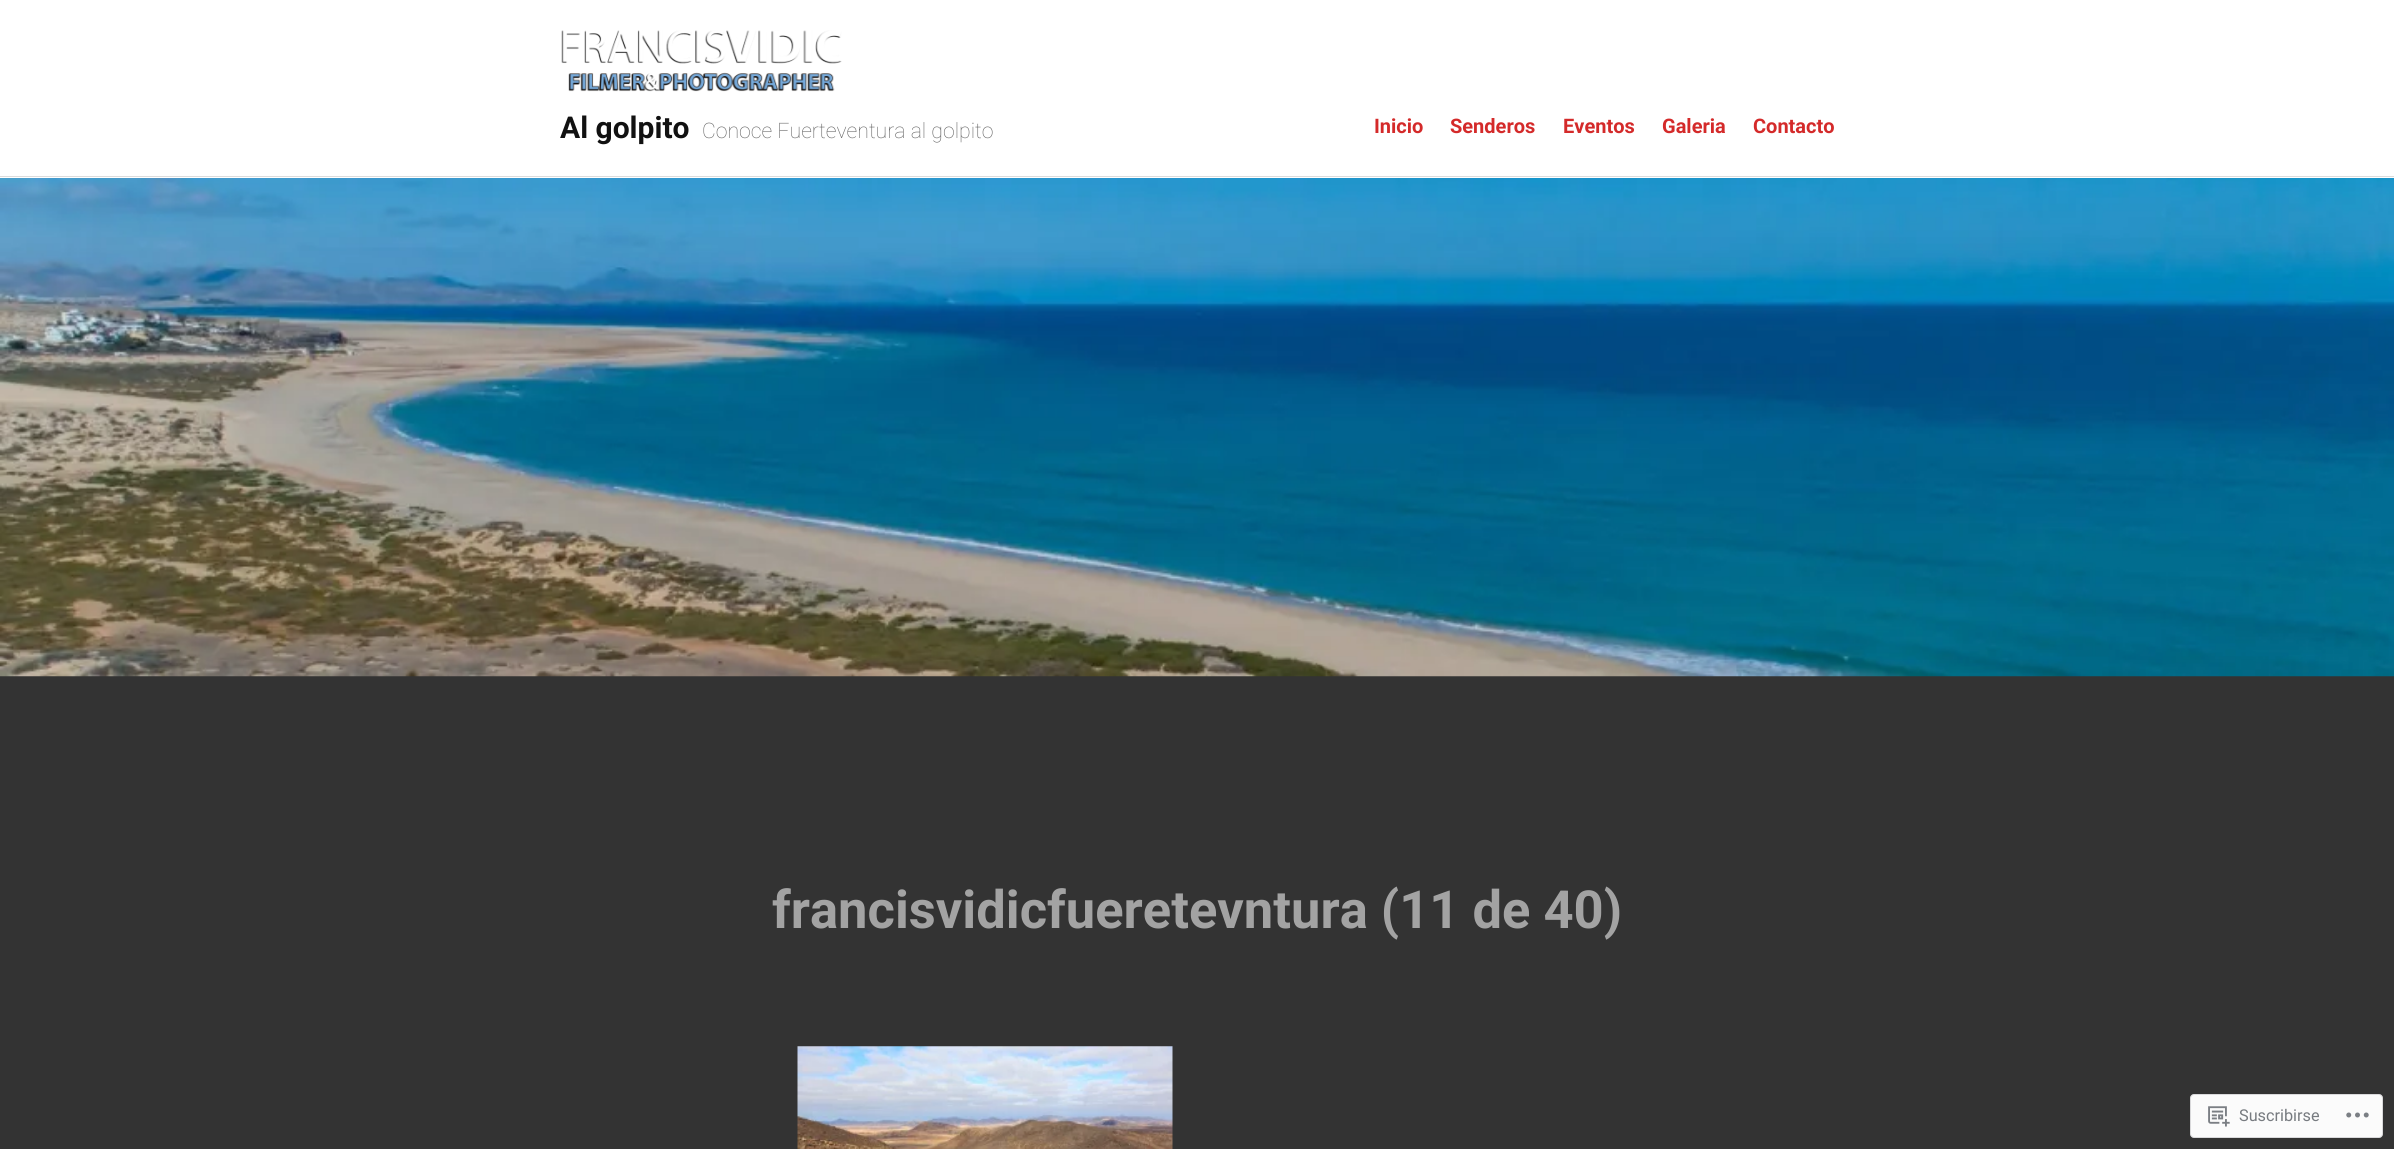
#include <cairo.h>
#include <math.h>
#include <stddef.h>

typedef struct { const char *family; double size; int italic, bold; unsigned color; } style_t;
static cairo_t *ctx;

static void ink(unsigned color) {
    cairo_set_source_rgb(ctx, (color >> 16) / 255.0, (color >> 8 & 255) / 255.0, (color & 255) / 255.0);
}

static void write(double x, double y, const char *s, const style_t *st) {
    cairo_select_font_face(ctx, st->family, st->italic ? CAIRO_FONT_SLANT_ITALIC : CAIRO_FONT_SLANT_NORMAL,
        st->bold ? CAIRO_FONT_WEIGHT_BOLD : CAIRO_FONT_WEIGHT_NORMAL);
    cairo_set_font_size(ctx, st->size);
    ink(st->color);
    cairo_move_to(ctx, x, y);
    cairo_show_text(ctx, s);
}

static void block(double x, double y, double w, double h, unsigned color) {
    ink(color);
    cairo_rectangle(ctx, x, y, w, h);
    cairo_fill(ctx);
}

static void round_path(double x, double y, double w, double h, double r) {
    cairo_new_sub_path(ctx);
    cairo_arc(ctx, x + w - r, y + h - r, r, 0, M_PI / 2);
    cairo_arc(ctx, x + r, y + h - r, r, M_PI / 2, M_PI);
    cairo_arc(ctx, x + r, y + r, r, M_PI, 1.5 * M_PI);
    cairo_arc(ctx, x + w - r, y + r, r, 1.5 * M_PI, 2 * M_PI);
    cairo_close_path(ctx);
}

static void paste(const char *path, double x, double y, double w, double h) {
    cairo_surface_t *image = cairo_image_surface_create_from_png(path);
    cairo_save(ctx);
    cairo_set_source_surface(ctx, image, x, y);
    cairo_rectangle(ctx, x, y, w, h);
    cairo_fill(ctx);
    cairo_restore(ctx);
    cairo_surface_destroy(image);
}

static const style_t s1 = {"Roboto", 30, 0, 1, 0x111111};
static const style_t s2 = {"Roboto Thin", 21.25, 0, 0, 0x606060};
static const style_t s3 = {"Roboto", 20, 0, 1, 0xd42a2a};
static const style_t s4 = {"Roboto", 52.5, 0, 1, 0xa3a3a3};
static const style_t s5 = {"Roboto", 16.25, 0, 0, 0x777b80};

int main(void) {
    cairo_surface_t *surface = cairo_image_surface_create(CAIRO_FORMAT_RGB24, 2394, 1149);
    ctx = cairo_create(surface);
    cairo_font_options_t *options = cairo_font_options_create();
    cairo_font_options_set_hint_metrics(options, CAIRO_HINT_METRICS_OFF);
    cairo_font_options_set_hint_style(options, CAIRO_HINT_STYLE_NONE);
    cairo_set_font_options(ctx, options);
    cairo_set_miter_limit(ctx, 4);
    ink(0x333333);
    cairo_paint(ctx);
    block(0, 0, 2394, 178, 0xffffff);
    block(0, 176, 2394, 1, 0xdcdcdc);
    paste("pic1.png", 561, 30, 281, 62);
    write(560, 138, "Al golpito", &s1);
    write(702, 138, "Conoce Fuerteventura al golpito", &s2);
    write(1374, 133, "Inicio", &s3);
    write(1450, 133, "Senderos", &s3);
    write(1563, 133, "Eventos", &s3);
    write(1662, 133, "Galeria", &s3);
    write(1753, 133, "Contacto", &s3);
    paste("pic2.png", 0, 178, 2394, 499);
    write(772, 928, "francisvidicfueretevntura (11 de 40)", &s4);
    paste("pic3.png", 797, 1046, 376, 103);
    ink(0xfbfbfb);
    round_path(2190.5, 1094.5, 192, 43, 3.5);
    cairo_fill_preserve(ctx);
    ink(0xd9d9db);
    cairo_set_line_width(ctx, 1);
    cairo_stroke(ctx);
    paste("pic4.png", 2208, 1106, 22, 21);
    write(2239, 1121, "Suscribirse", &s5);
    paste("pic5.png", 2346, 1112, 23, 6);
    cairo_surface_write_to_png(surface, "screenshot.png");
    cairo_font_options_destroy(options);
    cairo_destroy(ctx);
    cairo_surface_destroy(surface);
    return 0;
}
